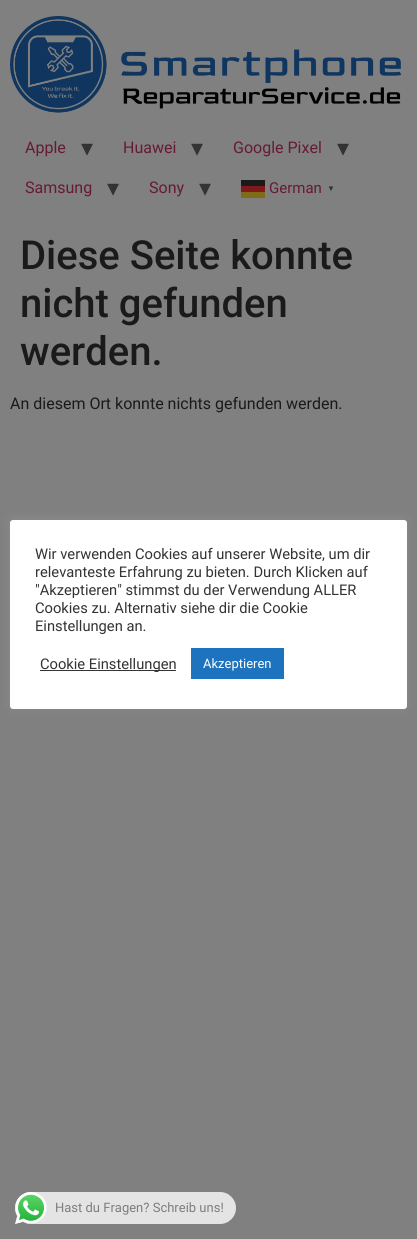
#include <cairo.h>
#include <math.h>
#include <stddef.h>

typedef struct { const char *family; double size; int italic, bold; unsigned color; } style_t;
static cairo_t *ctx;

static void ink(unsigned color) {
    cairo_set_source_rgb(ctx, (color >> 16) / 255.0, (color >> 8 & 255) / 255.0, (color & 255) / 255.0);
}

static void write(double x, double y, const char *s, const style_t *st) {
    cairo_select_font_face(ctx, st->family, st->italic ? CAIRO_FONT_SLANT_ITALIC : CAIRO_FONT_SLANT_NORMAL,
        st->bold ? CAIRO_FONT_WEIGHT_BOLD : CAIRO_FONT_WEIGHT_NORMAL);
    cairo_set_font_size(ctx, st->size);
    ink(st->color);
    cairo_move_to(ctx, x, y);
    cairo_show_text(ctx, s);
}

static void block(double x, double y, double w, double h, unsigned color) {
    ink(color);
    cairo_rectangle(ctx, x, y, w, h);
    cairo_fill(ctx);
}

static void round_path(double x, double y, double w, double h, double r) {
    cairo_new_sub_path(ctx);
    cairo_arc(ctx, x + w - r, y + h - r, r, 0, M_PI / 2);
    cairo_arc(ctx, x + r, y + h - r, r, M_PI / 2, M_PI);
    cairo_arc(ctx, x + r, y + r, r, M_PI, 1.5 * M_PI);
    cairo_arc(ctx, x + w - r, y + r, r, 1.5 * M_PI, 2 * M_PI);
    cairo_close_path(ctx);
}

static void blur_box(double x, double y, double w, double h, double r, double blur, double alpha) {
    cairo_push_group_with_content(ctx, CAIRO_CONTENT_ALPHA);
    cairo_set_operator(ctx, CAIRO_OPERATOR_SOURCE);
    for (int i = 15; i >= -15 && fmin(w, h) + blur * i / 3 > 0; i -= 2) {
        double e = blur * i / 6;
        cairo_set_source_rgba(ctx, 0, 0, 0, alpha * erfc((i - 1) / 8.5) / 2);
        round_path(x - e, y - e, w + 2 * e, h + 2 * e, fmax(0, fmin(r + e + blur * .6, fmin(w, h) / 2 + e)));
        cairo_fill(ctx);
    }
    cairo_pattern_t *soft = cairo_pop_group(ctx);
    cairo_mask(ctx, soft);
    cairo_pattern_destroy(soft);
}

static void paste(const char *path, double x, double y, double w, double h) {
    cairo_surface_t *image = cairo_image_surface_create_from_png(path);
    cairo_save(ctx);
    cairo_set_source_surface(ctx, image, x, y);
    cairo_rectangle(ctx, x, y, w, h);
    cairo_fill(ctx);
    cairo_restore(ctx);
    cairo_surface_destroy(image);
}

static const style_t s1 = {"Roboto", 16, 0, 0, 0x661a33};
static const style_t s2 = {"DejaVu Sans", 24, 0, 0, 0x333333};
static const style_t s3 = {"Roboto", 15, 0, 0, 0x661a33};
static const style_t s4 = {"Liberation Sans", 8, 0, 1, 0x333333};
static const style_t s5 = {"Roboto Medium", 40, 0, 0, 0x1a1a1a};
static const style_t s6 = {"Roboto", 16, 0, 0, 0x1a1a1a};
static const style_t s7 = {"Roboto", 14.7, 0, 0, 0x333333};
static const style_t s8 = {"Roboto", 13, 0, 0, 0xffffff};
static const style_t s9 = {"Roboto", 13, 0, 0, 0x7f7d7d};

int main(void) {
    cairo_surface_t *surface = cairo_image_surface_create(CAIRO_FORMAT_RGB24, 417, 1239);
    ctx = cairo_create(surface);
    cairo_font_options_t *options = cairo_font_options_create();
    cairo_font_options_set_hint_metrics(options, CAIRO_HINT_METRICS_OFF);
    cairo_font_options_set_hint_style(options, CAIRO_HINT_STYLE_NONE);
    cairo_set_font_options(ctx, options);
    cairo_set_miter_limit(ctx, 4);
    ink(0x808080);
    cairo_paint(ctx);
    paste("pic1.png", 10, 16, 392, 97);
    write(25, 153, "Apple", &s1);
    write(81, 156, "▾", &s2);
    write(123, 153, "Huawei", &s1);
    write(191, 156, "▾", &s2);
    write(233, 153, "Google Pixel", &s1);
    write(337, 156, "▾", &s2);
    write(25, 193, "Samsung", &s1);
    write(107, 196, "▾", &s2);
    write(149, 193, "Sony", &s1);
    write(199, 196, "▾", &s2);
    block(241, 180, 24, 6, 0x1a1a1a);
    write(269, 193, "German", &s3);
    block(241, 186, 24, 6, 0x801a1a);
    write(327, 191, "▼", &s4);
    block(241, 192, 24, 6, 0x806b1a);
    write(20, 269, "Diese Seite konnte", &s5);
    write(20, 317, "nicht gefunden", &s5);
    write(20, 365, "werden.", &s5);
    write(10, 409, "An diesem Ort konnte nichts gefunden werden.", &s6);
    ink(0xacabab);
    blur_box(10, 519, 397, 189, 3, 5, 0.3);
    ink(0xffffff);
    round_path(10, 520, 397, 189, 3);
    cairo_fill(ctx);
    write(35, 559, "Wir verwenden Cookies auf unserer Website, um dir", &s7);
    write(35, 577, "relevanteste Erfahrung zu bieten. Durch Klicken auf", &s7);
    write(35, 595, "\"Akzeptieren\" stimmst du der Verwendung ALLER", &s7);
    write(35, 613, "Cookies zu. Alternativ siehe dir die Cookie", &s7);
    write(35, 631, "Einstellungen an.", &s7);
    block(40, 670, 136, 1, 0x333333);
    write(40, 669, "Cookie Einstellungen", &s7);
    block(191, 648, 93, 31, 0x1e73be);
    write(203, 668, "Akzeptieren", &s8);
    ink(0xe4e4e4);
    round_path(15, 1192, 221, 32, 16);
    cairo_fill(ctx);
    paste("pic2.png", 15, 1192, 32, 32);
    write(55, 1212, "Hast du Fragen? Schreib uns!", &s9);
    cairo_surface_write_to_png(surface, "screenshot.png");
    cairo_font_options_destroy(options);
    cairo_destroy(ctx);
    cairo_surface_destroy(surface);
    return 0;
}
